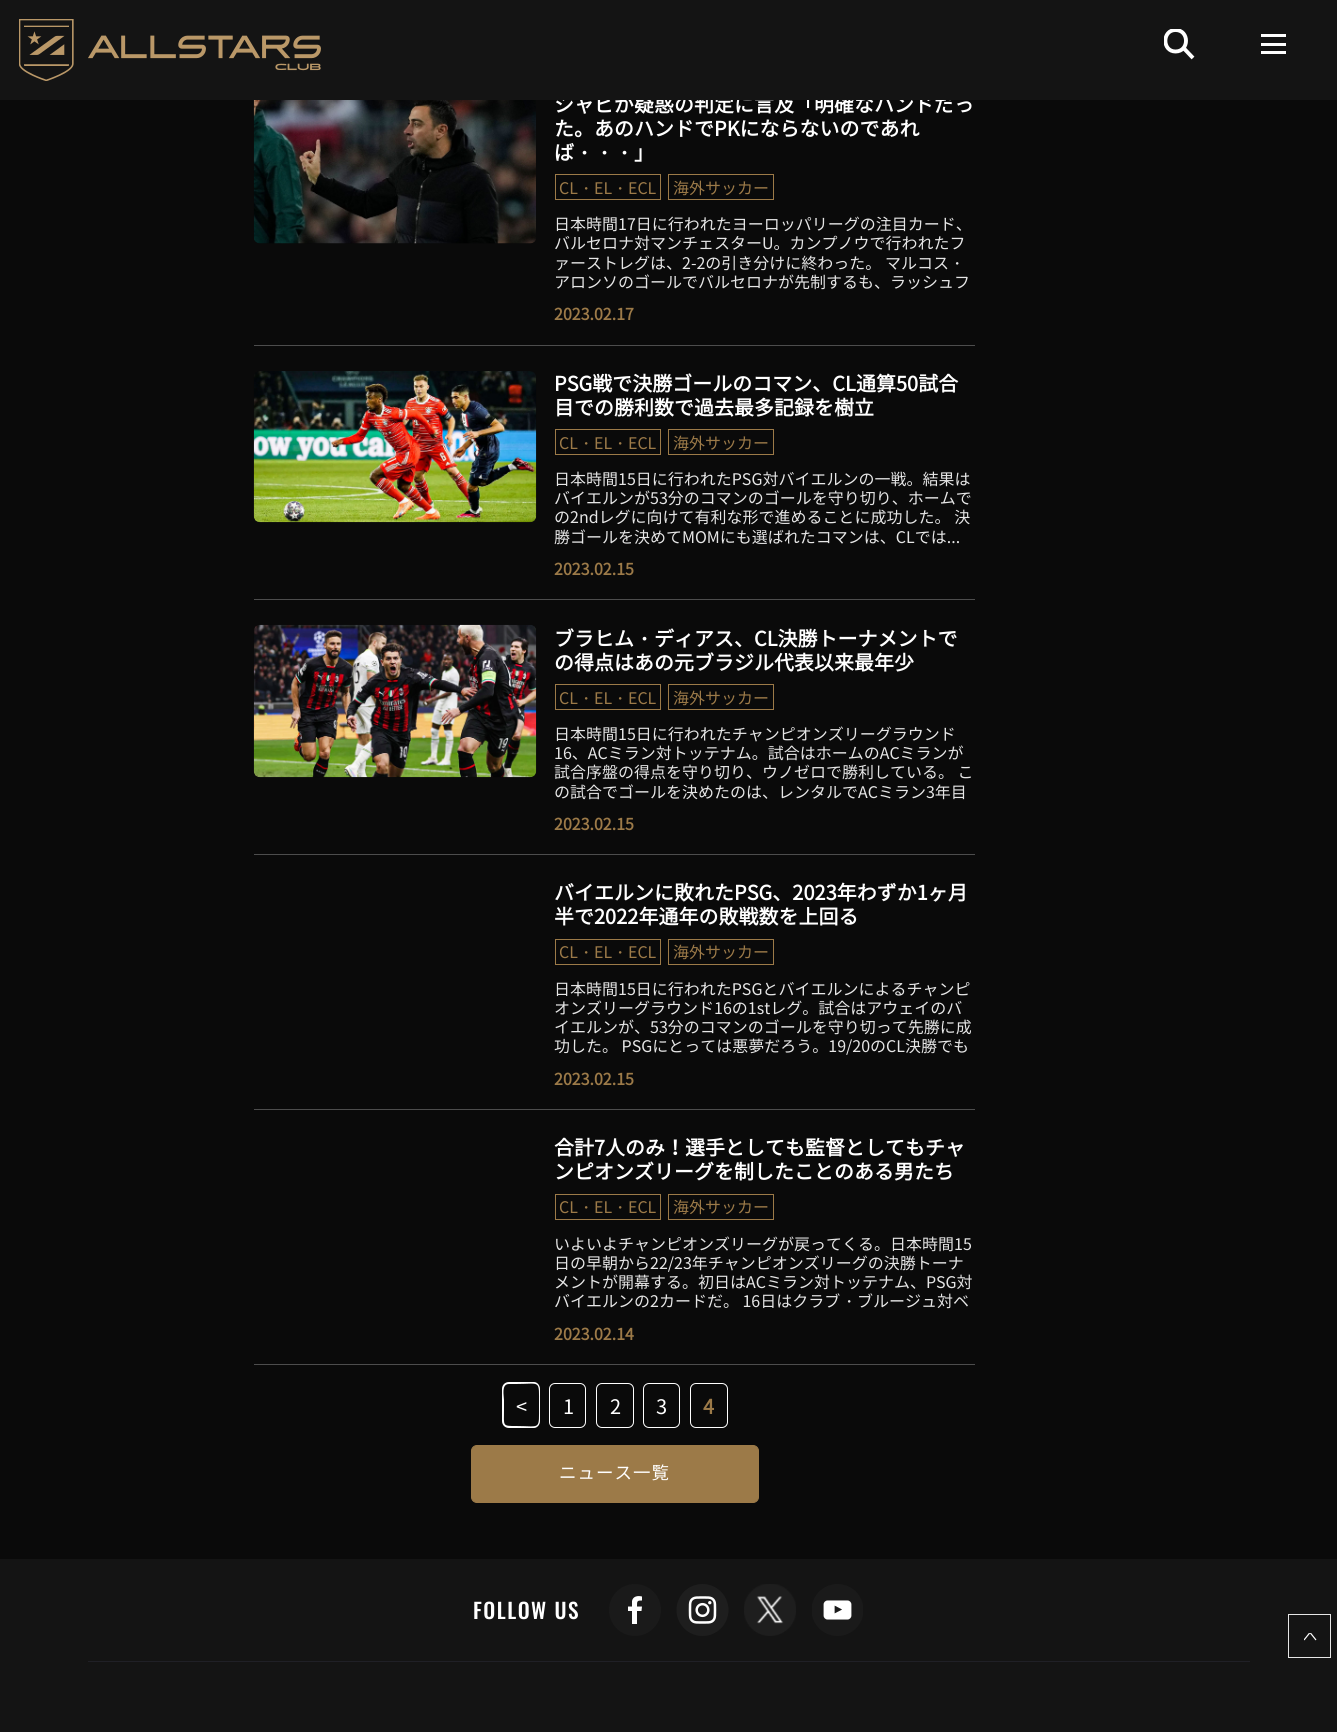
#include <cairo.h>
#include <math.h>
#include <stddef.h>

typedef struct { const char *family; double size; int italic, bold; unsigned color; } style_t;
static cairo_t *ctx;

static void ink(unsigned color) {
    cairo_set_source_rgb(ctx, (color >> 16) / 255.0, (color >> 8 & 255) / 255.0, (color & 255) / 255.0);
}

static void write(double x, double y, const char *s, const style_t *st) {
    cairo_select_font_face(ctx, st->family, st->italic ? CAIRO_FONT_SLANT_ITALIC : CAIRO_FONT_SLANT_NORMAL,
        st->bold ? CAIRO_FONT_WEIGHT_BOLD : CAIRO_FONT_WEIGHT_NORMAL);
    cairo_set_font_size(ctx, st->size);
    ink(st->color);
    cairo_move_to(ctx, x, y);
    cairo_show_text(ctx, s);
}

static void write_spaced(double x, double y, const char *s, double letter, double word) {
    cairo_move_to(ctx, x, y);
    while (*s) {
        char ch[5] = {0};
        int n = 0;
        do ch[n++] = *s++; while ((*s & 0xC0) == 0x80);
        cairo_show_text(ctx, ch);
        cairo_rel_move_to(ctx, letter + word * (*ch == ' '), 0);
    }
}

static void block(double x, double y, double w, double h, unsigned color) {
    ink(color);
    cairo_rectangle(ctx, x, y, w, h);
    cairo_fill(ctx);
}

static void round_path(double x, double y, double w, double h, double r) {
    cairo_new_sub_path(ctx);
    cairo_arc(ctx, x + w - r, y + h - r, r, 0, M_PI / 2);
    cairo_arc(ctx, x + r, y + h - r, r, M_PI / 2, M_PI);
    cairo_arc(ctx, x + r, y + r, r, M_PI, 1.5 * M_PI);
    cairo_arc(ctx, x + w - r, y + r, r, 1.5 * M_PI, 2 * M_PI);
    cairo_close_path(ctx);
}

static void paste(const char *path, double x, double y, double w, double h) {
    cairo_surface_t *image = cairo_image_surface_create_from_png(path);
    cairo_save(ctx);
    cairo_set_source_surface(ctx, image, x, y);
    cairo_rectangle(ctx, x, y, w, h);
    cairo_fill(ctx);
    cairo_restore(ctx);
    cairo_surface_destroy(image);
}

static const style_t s1 = {"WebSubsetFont", 20, 0, 1, 0xffffff};
static const style_t s2 = {"WenQuanYi Zen Hei", 20, 0, 1, 0xffffff};
static const style_t s3 = {"WebSubsetFont", 16, 0, 0, 0x9c7a48};
static const style_t s4 = {"WenQuanYi Zen Hei Medium", 16, 0, 0, 0x9c7a48};
static const style_t s5 = {"WebSubsetFont", 16, 0, 0, 0xe6e6e6};
static const style_t s6 = {"WenQuanYi Zen Hei Medium", 16, 0, 0, 0xe6e6e6};
static const style_t s7 = {"WebSubsetFont", 16, 0, 1, 0x9c7a48};

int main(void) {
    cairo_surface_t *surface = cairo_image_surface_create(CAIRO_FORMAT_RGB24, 1337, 1732);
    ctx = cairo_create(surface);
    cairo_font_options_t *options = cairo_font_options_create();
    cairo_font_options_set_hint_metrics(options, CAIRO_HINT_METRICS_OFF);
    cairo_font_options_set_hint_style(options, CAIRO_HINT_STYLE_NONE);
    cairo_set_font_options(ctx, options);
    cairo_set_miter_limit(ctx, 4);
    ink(0x0a0a0a);
    cairo_paint(ctx);
    write(554, 112, "シャビが疑惑の判定に言及「明確なハンドだっ", &s1);
    block(0, 0, 1337, 100, 0x141414);
    paste("pic1.png", 19, 19, 302, 62);
    cairo_save(ctx);
    cairo_rectangle(ctx, 1164, 29, 31, 31);
    cairo_clip(ctx);
    cairo_new_path(ctx);
    cairo_move_to(ctx, 1175.5, 30);
    cairo_curve_to(ctx, 1189.5, 30, 1189.5, 51.5, 1175.5, 51.5);
    cairo_curve_to(ctx, 1162, 51.5, 1162, 30, 1175.5, 30);
    cairo_close_path(ctx);
    ink(0xffffff);
    cairo_set_line_width(ctx, 3.9);
    cairo_set_line_cap(ctx, CAIRO_LINE_CAP_ROUND);
    cairo_set_line_join(ctx, CAIRO_LINE_JOIN_ROUND);
    cairo_stroke(ctx);
    cairo_restore(ctx);
    cairo_new_path(ctx);
    cairo_move_to(ctx, 1183.5, 48);
    cairo_line_to(ctx, 1193, 58);
    ink(0xffffff);
    cairo_set_line_width(ctx, 3.9);
    cairo_stroke(ctx);
    block(1261, 34, 25, 3, 0xffffff);
    block(1261, 43, 25, 3, 0xffffff);
    block(1261, 51, 25, 3, 0xffffff);
    paste("pic2.png", 253, 100, 283, 144);
    write(554, 136, "た。あのハンドでPKにならないのであれ", &s1);
    write(554, 160, "ば", &s1);
    write(574, 160, "・・・", &s2);
    write(634, 160, "」", &s1);
    cairo_rectangle(ctx, 555.5, 174.5, 105, 25);
    ink(0x9c7a48);
    cairo_set_line_width(ctx, 1);
    cairo_stroke(ctx);
    write(559, 194, "CL", &s3);
    write(578, 194, "・", &s4);
    write(594, 194, "EL", &s3);
    write(612, 194, "・", &s4);
    write(628, 194, "ECL", &s3);
    cairo_rectangle(ctx, 668.5, 174.5, 105, 25);
    cairo_stroke(ctx);
    write(673, 194, "海外サッカー", &s3);
    write(554, 230, "日本時間17日に行われたヨーロッパリーグの注目カード、", &s5);
    write(554, 249, "バルセロナ対マンチェスターU。カンプノウで行われたフ", &s5);
    write(554, 269, "ァーストレグは、2-2の引き分けに終わった。 マルコス", &s5);
    write(949, 269, "・", &s6);
    write(554, 288, "アロンソのゴールでバルセロナが先制するも、ラッシュフ", &s5);
    write(554, 320, "2023.02.17", &s7);
    block(254, 345, 721, 1, 0x4d4d4d);
    paste("pic3.png", 253, 371, 284, 152);
    write(554, 391, "PSG戦で決勝ゴールのコマン、CL通算50試合", &s1);
    write(554, 415, "目での勝利数で過去最多記録を樹立", &s1);
    cairo_rectangle(ctx, 555.5, 429.5, 105, 25);
    ink(0x9c7a48);
    cairo_stroke(ctx);
    write(559, 449, "CL", &s3);
    write(578, 449, "・", &s4);
    write(594, 449, "EL", &s3);
    write(612, 449, "・", &s4);
    write(628, 449, "ECL", &s3);
    cairo_rectangle(ctx, 668.5, 429.5, 105, 25);
    cairo_stroke(ctx);
    write(673, 449, "海外サッカー", &s3);
    write(554, 485, "日本時間15日に行われたPSG対バイエルンの一戦。結果は", &s5);
    write(554, 504, "バイエルンが53分のコマンのゴールを守り切り、ホームで", &s5);
    write(554, 523, "の2ndレグに向けて有利な形で進めることに成功した。 決", &s5);
    write(554, 543, "勝ゴールを決めてMOMにも選ばれたコマンは、CLでは...", &s5);
    write(554, 575, "2023.02.15", &s7);
    block(254, 599, 721, 1, 0x4d4d4d);
    paste("pic4.png", 253, 624, 284, 154);
    write(554, 646, "ブラヒム", &s1);
    write(634, 646, "・", &s2);
    write(654, 646, "ディアス、CL決勝トーナメントで", &s1);
    write(554, 670, "の得点はあの元ブラジル代表以来最年少", &s1);
    cairo_rectangle(ctx, 555.5, 684.5, 105, 25);
    ink(0x9c7a48);
    cairo_stroke(ctx);
    write(559, 704, "CL", &s3);
    write(578, 704, "・", &s4);
    write(594, 704, "EL", &s3);
    write(612, 704, "・", &s4);
    write(628, 704, "ECL", &s3);
    cairo_rectangle(ctx, 668.5, 684.5, 105, 25);
    cairo_stroke(ctx);
    write(673, 704, "海外サッカー", &s3);
    write(554, 740, "日本時間15日に行われたチャンピオンズリーグラウンド", &s5);
    write(554, 759, "16、ACミラン対トッテナム。試合はホームのACミランが", &s5);
    write(554, 778, "試合序盤の得点を守り切り、ウノゼロで勝利している。 こ", &s5);
    write(554, 798, "の試合でゴールを決めたのは、レンタルでACミラン3年目", &s5);
    write(554, 830, "2023.02.15", &s7);
    block(254, 854, 721, 1, 0x4d4d4d);
    write(554, 900, "バイエルンに敗れたPSG、2023年わずか1ヶ月", &s1);
    write(554, 924, "半で2022年通年の敗戦数を上回る", &s1);
    cairo_rectangle(ctx, 555.5, 939.5, 105, 25);
    ink(0x9c7a48);
    cairo_stroke(ctx);
    write(559, 958, "CL", &s3);
    write(578, 958, "・", &s4);
    write(594, 958, "EL", &s3);
    write(612, 958, "・", &s4);
    write(628, 958, "ECL", &s3);
    cairo_rectangle(ctx, 668.5, 939.5, 105, 25);
    cairo_stroke(ctx);
    write(673, 958, "海外サッカー", &s3);
    write(554, 995, "日本時間15日に行われたPSGとバイエルンによるチャンピ", &s5);
    write(554, 1014, "オンズリーグラウンド16の1stレグ。試合はアウェイのバ", &s5);
    write(554, 1033, "イエルンが、53分のコマンのゴールを守り切って先勝に成", &s5);
    write(554, 1052, "功した。 PSGにとっては悪夢だろう。19/20のCL決勝でも", &s5);
    write(554, 1085, "2023.02.15", &s7);
    block(254, 1109, 721, 1, 0x4d4d4d);
    write(554, 1155, "合計7人のみ！選手としても監督としてもチャ", &s1);
    write(554, 1179, "ンピオンズリーグを制したことのある男たち", &s1);
    cairo_rectangle(ctx, 555.5, 1194.5, 105, 25);
    ink(0x9c7a48);
    cairo_stroke(ctx);
    write(559, 1213, "CL", &s3);
    write(578, 1213, "・", &s4);
    write(594, 1213, "EL", &s3);
    write(612, 1213, "・", &s4);
    write(628, 1213, "ECL", &s3);
    cairo_rectangle(ctx, 668.5, 1194.5, 105, 25);
    cairo_stroke(ctx);
    write(673, 1213, "海外サッカー", &s3);
    write(554, 1250, "いよいよチャンピオンズリーグが戻ってくる。日本時間15", &s5);
    write(554, 1269, "日の早朝から22/23年チャンピオンズリーグの決勝トーナ", &s5);
    write(554, 1288, "メントが開幕する。初日はACミラン対トッテナム、PSG対", &s5);
    write(554, 1307, "バイエルンの2カードだ。 16日はクラブ", &s5);
    write(841, 1307, "・", &s6);
    write(857, 1307, "ブルージュ対ベ", &s5);
    write(554, 1340, "2023.02.14", &s7);
    block(254, 1364, 721, 1, 0x4d4d4d);
    ink(0xffffff);
    cairo_set_fill_rule(ctx, CAIRO_FILL_RULE_EVEN_ODD);
    cairo_new_path(ctx);
    cairo_move_to(ctx, 509, 1382);
    cairo_line_to(ctx, 516, 1382);
    cairo_line_to(ctx, 516, 1428);
    cairo_line_to(ctx, 509, 1428);
    cairo_curve_to(ctx, 505, 1428, 502, 1425, 502, 1421);
    cairo_line_to(ctx, 502, 1389);
    cairo_curve_to(ctx, 502, 1385, 505, 1382, 509, 1382);
    cairo_close_path(ctx);
    cairo_move_to(ctx, 509, 1384);
    cairo_line_to(ctx, 516, 1384);
    cairo_line_to(ctx, 516, 1426);
    cairo_curve_to(ctx, 502, 1426, 504, 1426, 504, 1410);
    cairo_line_to(ctx, 504, 1400);
    cairo_curve_to(ctx, 504, 1396, 501, 1384, 509, 1384);
    cairo_close_path(ctx);
    cairo_move_to(ctx, 516, 1382);
    cairo_line_to(ctx, 534, 1382);
    cairo_curve_to(ctx, 537, 1382, 540, 1385, 540, 1389);
    cairo_line_to(ctx, 540, 1421);
    cairo_curve_to(ctx, 540, 1425, 537, 1428, 534, 1428);
    cairo_line_to(ctx, 516, 1428);
    cairo_close_path(ctx);
    cairo_move_to(ctx, 516, 1384);
    cairo_curve_to(ctx, 541, 1384, 539, 1379, 539, 1405);
    cairo_curve_to(ctx, 539, 1431, 541, 1426, 516, 1426);
    cairo_close_path(ctx);
    cairo_fill(ctx);
    cairo_select_font_face(ctx, "WebSubsetFont", CAIRO_FONT_SLANT_NORMAL, CAIRO_FONT_WEIGHT_NORMAL);
    cairo_set_font_size(ctx, 20);
    write_spaced(516, 1414, "<", 5, 0);
    round_path(549.5, 1383.5, 36, 44, 5.5);
    cairo_stroke(ctx);
    write_spaced(563, 1414, "1", 5, 0);
    round_path(596.5, 1383.5, 37, 44, 5.5);
    cairo_stroke(ctx);
    write_spaced(610, 1414, "2", 5, 0);
    round_path(643.5, 1383.5, 36, 44, 5.5);
    cairo_stroke(ctx);
    write_spaced(656, 1414, "3", 5, 0);
    round_path(690.5, 1383.5, 37, 44, 5.5);
    cairo_stroke(ctx);
    cairo_select_font_face(ctx, "WebSubsetFont", CAIRO_FONT_SLANT_NORMAL, CAIRO_FONT_WEIGHT_BOLD);
    ink(0x9c7a48);
    write_spaced(703, 1414, "4", 5, 0);
    round_path(471.5, 1445.5, 287, 57, 5.5);
    cairo_fill_preserve(ctx);
    cairo_stroke(ctx);
    cairo_select_font_face(ctx, "WebSubsetFont", CAIRO_FONT_SLANT_NORMAL, CAIRO_FONT_WEIGHT_NORMAL);
    cairo_set_font_size(ctx, 17.5);
    ink(0xffffff);
    write_spaced(559, 1479, "ニュース一覧", 1, 0);
    block(0, 1559, 1337, 173, 0x141414);
    block(88, 1661, 1162, 1, 0x202026);
    cairo_select_font_face(ctx, "Oswald Medium", CAIRO_FONT_SLANT_NORMAL, CAIRO_FONT_WEIGHT_NORMAL);
    cairo_set_font_size(ctx, 21.25);
    ink(0xffffff);
    write_spaced(473, 1619, "FOLLOW US", 1.5, 0);
    ink(0x1a1a1a);
    cairo_new_path(ctx);
    cairo_arc(ctx, 635, 1610, 26, 0, 2 * M_PI);
    cairo_fill(ctx);
    ink(0xffffff);
    cairo_set_fill_rule(ctx, CAIRO_FILL_RULE_WINDING);
    cairo_new_path(ctx);
    cairo_move_to(ctx, 641.5, 1611);
    cairo_line_to(ctx, 642, 1606.5);
    cairo_line_to(ctx, 637, 1606.5);
    cairo_curve_to(ctx, 637, 1601, 637, 1600.5, 642, 1600.5);
    cairo_line_to(ctx, 642, 1596.5);
    cairo_curve_to(ctx, 638, 1595.5, 633, 1596, 632, 1601);
    cairo_line_to(ctx, 632, 1606.5);
    cairo_line_to(ctx, 628, 1606.5);
    cairo_line_to(ctx, 628, 1611);
    cairo_line_to(ctx, 632, 1611);
    cairo_line_to(ctx, 632, 1624);
    cairo_line_to(ctx, 637, 1624);
    cairo_line_to(ctx, 637, 1611);
    cairo_close_path(ctx);
    cairo_fill(ctx);
    paste("pic5.png", 676, 1584, 53, 52);
    paste("pic6.png", 744, 1584, 52, 52);
    paste("pic7.png", 812, 1584, 51, 52);
    cairo_rectangle(ctx, 1288.5, 1614.5, 42, 43);
    ink(0xe6e6e6);
    cairo_stroke(ctx);
    cairo_save(ctx);
    cairo_rectangle(ctx, 1304, 1633, 14, 8);
    cairo_clip(ctx);
    cairo_new_path(ctx);
    cairo_move_to(ctx, 1304, 1640);
    cairo_line_to(ctx, 1310, 1632.5);
    cairo_line_to(ctx, 1316, 1640);
    ink(0xffffff);
    cairo_set_line_width(ctx, 1.2);
    cairo_set_line_join(ctx, CAIRO_LINE_JOIN_ROUND);
    cairo_stroke(ctx);
    cairo_restore(ctx);
    cairo_surface_write_to_png(surface, "screenshot.png");
    cairo_font_options_destroy(options);
    cairo_destroy(ctx);
    cairo_surface_destroy(surface);
    return 0;
}
